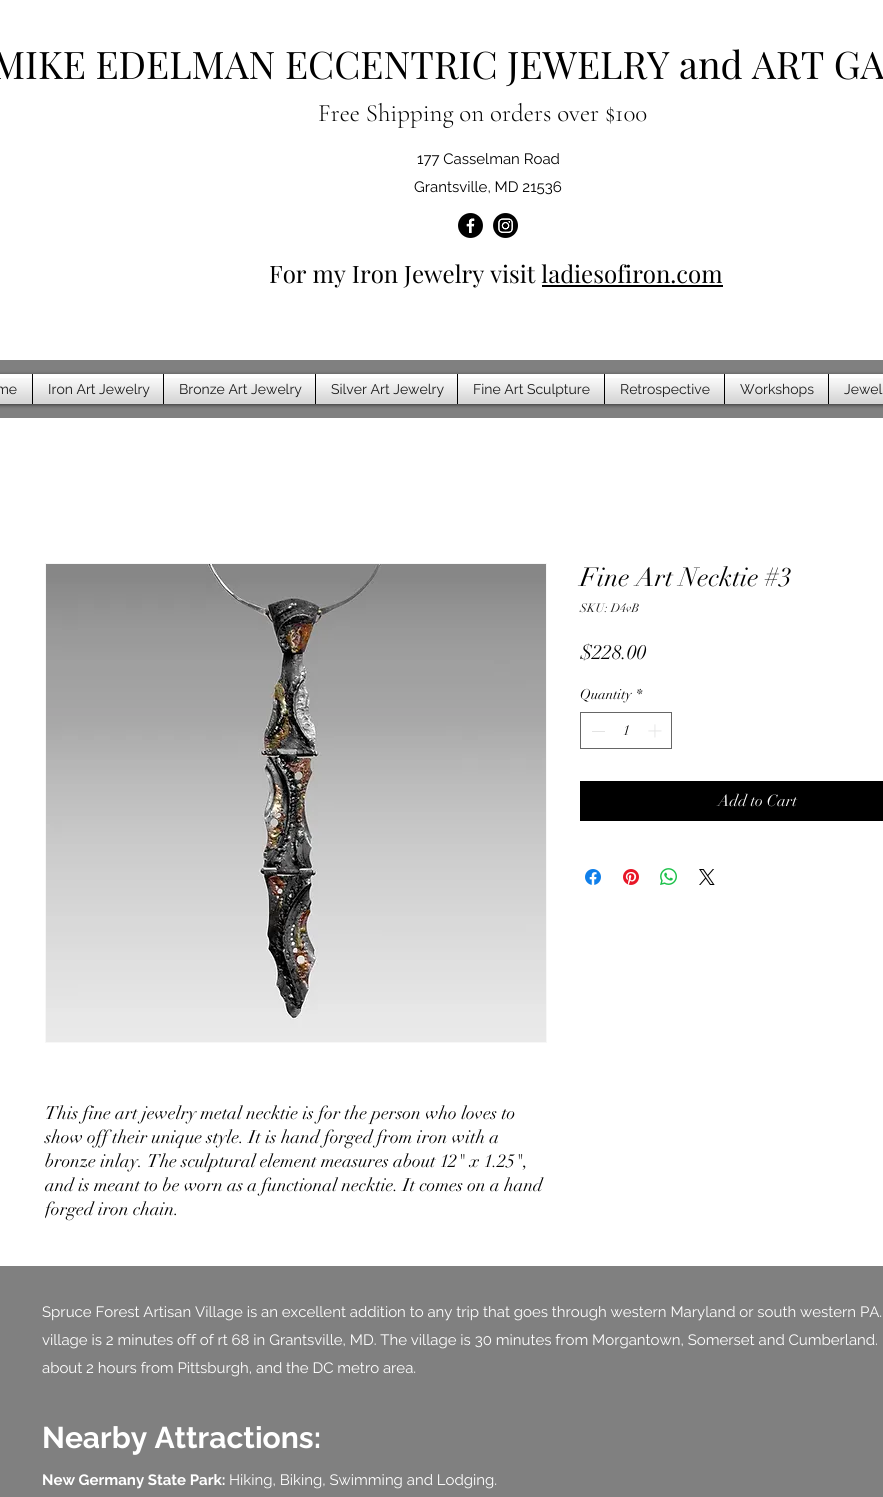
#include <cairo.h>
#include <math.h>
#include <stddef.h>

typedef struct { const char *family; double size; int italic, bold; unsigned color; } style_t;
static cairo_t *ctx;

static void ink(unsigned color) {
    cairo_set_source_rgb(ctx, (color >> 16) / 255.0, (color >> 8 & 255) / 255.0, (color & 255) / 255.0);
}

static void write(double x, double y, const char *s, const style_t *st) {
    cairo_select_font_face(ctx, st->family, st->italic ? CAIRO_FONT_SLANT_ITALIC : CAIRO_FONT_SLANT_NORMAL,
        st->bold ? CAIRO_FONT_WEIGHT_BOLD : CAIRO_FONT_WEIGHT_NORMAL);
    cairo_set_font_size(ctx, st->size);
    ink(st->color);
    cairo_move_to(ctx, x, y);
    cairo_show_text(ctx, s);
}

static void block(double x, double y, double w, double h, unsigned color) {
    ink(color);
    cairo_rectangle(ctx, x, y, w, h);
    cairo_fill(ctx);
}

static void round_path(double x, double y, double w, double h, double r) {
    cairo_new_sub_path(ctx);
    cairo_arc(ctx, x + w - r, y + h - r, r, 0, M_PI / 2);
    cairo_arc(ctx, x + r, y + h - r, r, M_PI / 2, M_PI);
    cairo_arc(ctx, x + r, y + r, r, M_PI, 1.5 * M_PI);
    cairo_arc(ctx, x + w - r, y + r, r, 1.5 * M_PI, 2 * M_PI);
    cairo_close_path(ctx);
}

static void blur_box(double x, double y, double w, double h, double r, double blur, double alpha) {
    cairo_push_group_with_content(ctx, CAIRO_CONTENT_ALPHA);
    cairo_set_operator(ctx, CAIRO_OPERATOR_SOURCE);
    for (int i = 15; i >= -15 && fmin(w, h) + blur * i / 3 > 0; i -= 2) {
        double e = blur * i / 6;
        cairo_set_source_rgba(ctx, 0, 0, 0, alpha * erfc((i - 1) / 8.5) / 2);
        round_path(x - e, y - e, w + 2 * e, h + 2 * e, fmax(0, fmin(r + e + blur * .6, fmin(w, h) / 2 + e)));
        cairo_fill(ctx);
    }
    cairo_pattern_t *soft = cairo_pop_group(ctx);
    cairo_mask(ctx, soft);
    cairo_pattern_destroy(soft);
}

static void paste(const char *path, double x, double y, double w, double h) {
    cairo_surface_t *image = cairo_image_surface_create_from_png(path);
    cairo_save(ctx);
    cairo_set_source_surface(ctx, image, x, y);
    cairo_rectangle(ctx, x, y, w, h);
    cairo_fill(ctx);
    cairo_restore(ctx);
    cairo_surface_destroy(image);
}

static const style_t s1 = {"Playfair Display", 38, 0, 0, 0x000000};
static const style_t s2 = {"Cormorant Garamond Light", 25, 0, 0, 0x000000};
static const style_t s3 = {"Raleway", 15, 0, 0, 0x000000};
static const style_t s4 = {"Playfair Display", 24, 0, 0, 0x000000};
static const style_t s5 = {"Raleway", 14, 0, 0, 0x000000};
static const style_t s6 = {"didot", 26, 0, 0, 0x000000};
static const style_t s7 = {"didot", 12, 0, 0, 0x191919};
static const style_t s8 = {"didot", 20, 0, 0, 0x000000};
static const style_t s9 = {"didot", 14, 0, 0, 0x000000};
static const style_t s10 = {"didot", 16, 0, 0, 0xffffff};
static const style_t s11 = {"didot", 18, 0, 0, 0x000000};
static const style_t s12 = {"Raleway", 15, 0, 0, 0xffffff};
static const style_t s13 = {"Raleway", 30, 0, 1, 0xffffff};
static const style_t s14 = {"Raleway", 15, 0, 1, 0xffffff};

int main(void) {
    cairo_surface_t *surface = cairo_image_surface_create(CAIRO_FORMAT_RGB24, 883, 1497);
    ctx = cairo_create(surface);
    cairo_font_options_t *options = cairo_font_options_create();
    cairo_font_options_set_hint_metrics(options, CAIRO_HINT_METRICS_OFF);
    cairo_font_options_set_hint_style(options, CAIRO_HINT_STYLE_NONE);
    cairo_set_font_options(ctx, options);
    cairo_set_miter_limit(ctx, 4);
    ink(0xffffff);
    cairo_paint(ctx);
    write(-8, 79, "MIKE EDELMAN ECCENTRIC JEWELRY and ART GA", &s1);
    write(318, 121, "Free Shipping on orders over $100", &s2);
    write(417, 164, "177 Casselman Road", &s3);
    write(414, 192, "Grantsville, MD 21536", &s3);
    paste("pic1.png", 458, 213, 25, 25);
    paste("pic2.png", 493, 213, 25, 25);
    write(269, 283, "For my Iron Jewelry visit ladiesofiron.com", &s4);
    block(542, 285, 181, 2, 0x000000);
    block(0, 360, 883, 58, 0x808080);
    ink(0x000000);
    blur_box(-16, 375, 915, 30, 10, 2, 0.6);
    block(0, 374, 32, 30, 0xffffff);
    write(-4, 394, "me", &s5);
    paste("pic3.png", 0, 386, 17, 8);
    paste("pic4.png", 0, 378, 32, 26);
    block(33, 374, 130, 30, 0xffffff);
    block(32, 374, 1, 30, 0x000000);
    write(48, 394, "Iron Art Jewelry", &s5);
    paste("pic5.png", 49, 383, 101, 14);
    paste("pic6.png", 33, 378, 130, 26);
    block(164, 374, 151, 30, 0xffffff);
    block(163, 374, 1, 30, 0x000000);
    write(179, 394, "Bronze Art Jewelry", &s5);
    paste("pic7.png", 180, 383, 122, 14);
    paste("pic8.png", 164, 378, 151, 26);
    block(316, 374, 141, 30, 0xffffff);
    block(315, 374, 1, 30, 0x000000);
    write(331, 394, "Silver Art Jewelry", &s5);
    paste("pic9.png", 331, 383, 113, 14);
    paste("pic10.png", 316, 378, 141, 26);
    block(458, 374, 146, 30, 0xffffff);
    block(457, 374, 1, 30, 0x000000);
    write(473, 394, "Fine Art Sculpture", &s5);
    paste("pic11.png", 474, 383, 116, 14);
    paste("pic12.png", 458, 378, 146, 26);
    block(605, 374, 119, 30, 0xffffff);
    block(604, 374, 1, 30, 0x000000);
    write(620, 394, "Retrospective", &s5);
    paste("pic13.png", 621, 383, 89, 14);
    paste("pic14.png", 605, 378, 119, 26);
    block(725, 374, 103, 30, 0xffffff);
    block(724, 374, 1, 30, 0x000000);
    write(740, 394, "Workshops", &s5);
    paste("pic15.png", 740, 383, 74, 14);
    paste("pic16.png", 725, 378, 103, 26);
    block(829, 374, 54, 30, 0xffffff);
    block(828, 374, 1, 30, 0x000000);
    write(844, 394, "Jewel", &s5);
    paste("pic17.png", 844, 383, 39, 11);
    paste("pic18.png", 829, 378, 54, 26);
    write(580, 586, "Fine Art Necktie #3", &s6);
    write(580, 612, "SKU: D4vB", &s7);
    write(580, 659, "$228.00", &s8);
    write(580, 699, "Quantity", &s9);
    write(636, 699, "*", &s9);
    cairo_rectangle(ctx, 580.5, 712.5, 91, 36);
    ink(0x666666);
    cairo_set_line_width(ctx, 1);
    cairo_stroke(ctx);
    block(592, 731, 13, 1, 0xe3e3e3);
    write(623, 735, "1", &s9);
    paste("pic19.png", 648, 724, 14, 14);
    block(580, 781, 303, 40, 0x000000);
    write(718, 806, "Add to Cart", &s10);
    paste("pic20.png", 585, 869, 16, 16);
    paste("pic21.png", 623, 869, 16, 16);
    paste("pic22.png", 660, 868, 17, 17);
    paste("pic23.png", 699, 869, 16, 16);
    cairo_rectangle(ctx, 45.5, 563.5, 501, 479);
    ink(0xf7f7f7);
    cairo_stroke(ctx);
    paste("pic24.png", 46, 564, 500, 478);
    write(45, 1119, "This fine art jewelry metal necktie is for the person who loves to", &s11);
    write(45, 1143, "show off their unique style. It is hand forged from iron with a", &s11);
    write(45, 1167, "bronze inlay. The sculptural element measures about 12\" x 1.25\",", &s11);
    write(45, 1191, "and is meant to be worn as a functional necktie. It comes on a hand", &s11);
    cairo_save(ctx);
    cairo_rectangle(ctx, 45, 1101, 500, 120);
    cairo_clip(ctx);
    write(45, 1215, "forged iron chain.", &s11);
    cairo_restore(ctx);
    block(0, 1266, 883, 231, 0x808080);
    write(42, 1317, "Spruce Forest Artisan Village is an excellent addition to any trip that goes through western Maryland or south western PA.", &s12);
    write(42, 1345, "village is 2 minutes off of rt 68 in Grantsville, MD. The village is 30 minutes from Morgantown, Somerset and Cumberland.", &s12);
    write(42, 1373, "about 2 hours from Pittsburgh, and the DC metro area.", &s12);
    write(42, 1448, "Nearby Attractions:", &s13);
    write(42, 1485, "New Germany State Park:", &s14);
    write(229, 1485, "Hiking, Biking, Swimming and Lodging.", &s12);
    cairo_surface_write_to_png(surface, "screenshot.png");
    cairo_font_options_destroy(options);
    cairo_destroy(ctx);
    cairo_surface_destroy(surface);
    return 0;
}
